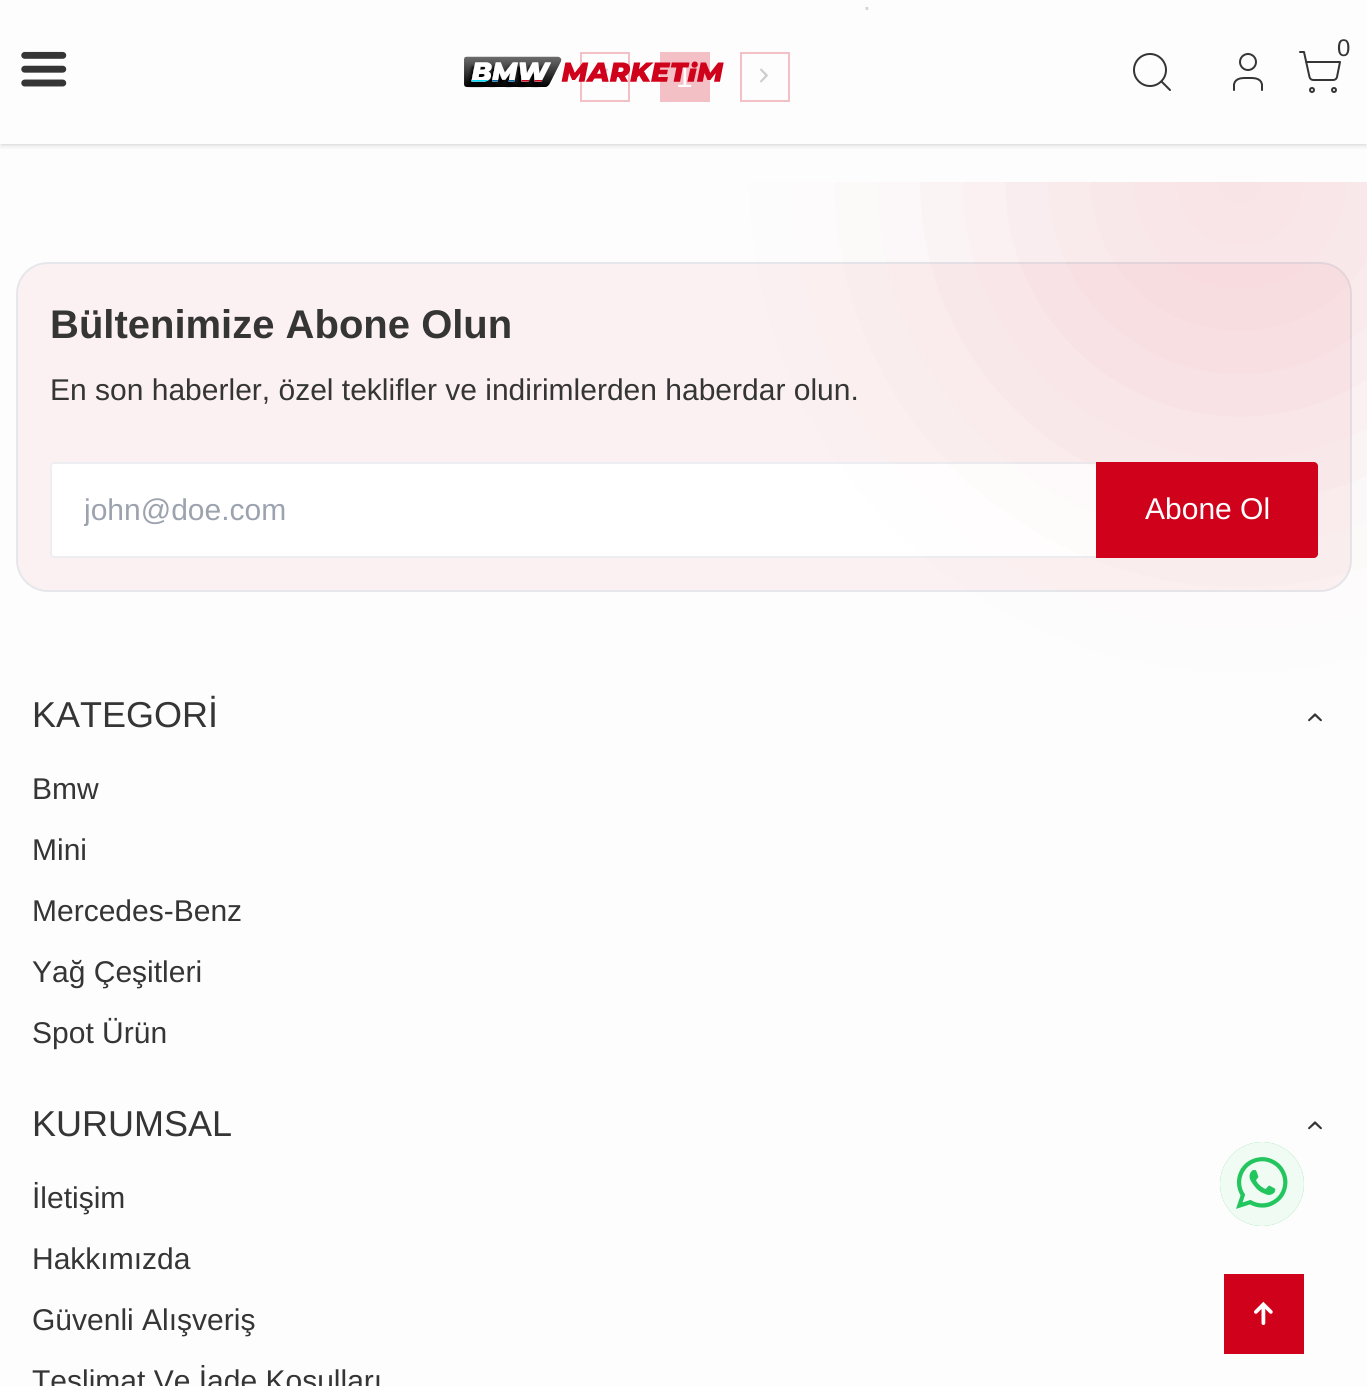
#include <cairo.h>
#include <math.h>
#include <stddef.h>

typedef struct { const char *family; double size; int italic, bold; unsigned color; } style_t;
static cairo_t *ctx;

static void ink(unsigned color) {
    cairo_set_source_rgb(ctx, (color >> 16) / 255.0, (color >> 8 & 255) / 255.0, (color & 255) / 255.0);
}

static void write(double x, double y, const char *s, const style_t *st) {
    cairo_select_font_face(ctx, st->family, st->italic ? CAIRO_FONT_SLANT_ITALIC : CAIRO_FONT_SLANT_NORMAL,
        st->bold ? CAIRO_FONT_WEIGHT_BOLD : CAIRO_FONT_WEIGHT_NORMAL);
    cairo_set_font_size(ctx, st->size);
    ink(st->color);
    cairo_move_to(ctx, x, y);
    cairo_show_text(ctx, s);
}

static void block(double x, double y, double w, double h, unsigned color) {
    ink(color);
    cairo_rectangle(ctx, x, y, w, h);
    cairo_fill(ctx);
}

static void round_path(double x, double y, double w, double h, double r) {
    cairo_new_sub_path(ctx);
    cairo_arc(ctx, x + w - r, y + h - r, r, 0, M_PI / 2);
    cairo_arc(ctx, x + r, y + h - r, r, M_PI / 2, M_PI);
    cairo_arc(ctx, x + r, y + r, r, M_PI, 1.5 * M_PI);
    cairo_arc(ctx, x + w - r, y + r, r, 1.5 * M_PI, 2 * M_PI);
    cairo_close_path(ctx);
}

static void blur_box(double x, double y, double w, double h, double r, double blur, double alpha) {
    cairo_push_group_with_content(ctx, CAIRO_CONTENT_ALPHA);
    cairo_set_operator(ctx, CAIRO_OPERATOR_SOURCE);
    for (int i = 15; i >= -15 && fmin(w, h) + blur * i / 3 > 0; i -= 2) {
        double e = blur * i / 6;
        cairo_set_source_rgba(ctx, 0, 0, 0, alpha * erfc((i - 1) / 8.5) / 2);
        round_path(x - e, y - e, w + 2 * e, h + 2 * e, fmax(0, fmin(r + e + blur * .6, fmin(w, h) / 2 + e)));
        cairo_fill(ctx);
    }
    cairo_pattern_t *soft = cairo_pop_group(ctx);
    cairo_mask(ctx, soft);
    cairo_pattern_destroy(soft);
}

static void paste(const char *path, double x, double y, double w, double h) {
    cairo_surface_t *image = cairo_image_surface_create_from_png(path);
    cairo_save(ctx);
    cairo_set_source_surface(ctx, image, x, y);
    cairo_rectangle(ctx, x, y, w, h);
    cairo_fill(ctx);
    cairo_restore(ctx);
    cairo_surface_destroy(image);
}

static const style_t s1 = {"Liberation Sans", 28, 0, 0, 0xd2d5d8};
static const style_t s2 = {"Liberation Sans", 30, 0, 0, 0xffffff};
static const style_t s3 = {"Liberation Sans", 24, 0, 0, 0x353535};
static const style_t s4 = {"Liberation Sans", 40, 0, 1, 0x353535};
static const style_t s5 = {"Liberation Sans", 30, 0, 0, 0x353535};
static const style_t s6 = {"Liberation Sans", 30, 0, 0, 0x9ca3af};
static const style_t s7 = {"Liberation Sans", 36, 0, 0, 0x353535};

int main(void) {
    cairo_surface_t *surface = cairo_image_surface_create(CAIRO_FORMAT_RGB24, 1367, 1386);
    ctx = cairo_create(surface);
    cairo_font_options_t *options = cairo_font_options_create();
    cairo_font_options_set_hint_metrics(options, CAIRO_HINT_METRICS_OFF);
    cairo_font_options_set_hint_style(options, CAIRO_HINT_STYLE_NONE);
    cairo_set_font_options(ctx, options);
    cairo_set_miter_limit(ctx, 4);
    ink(0xfdfdfd);
    cairo_paint(ctx);
    write(863, 10, ".", &s1);
    cairo_rectangle(ctx, 581, 53, 48, 48);
    ink(0xf3c0c6);
    cairo_stroke(ctx);
    paste("pic1.png", 605, 68, 3, 15);
    block(660, 52, 50, 50, 0xf3c0c6);
    write(676, 87, "1", &s2);
    cairo_rectangle(ctx, 741, 53, 48, 48);
    ink(0xf3c0c6);
    cairo_stroke(ctx);
    paste("pic2.png", 760, 68, 8, 15);
    cairo_save(ctx);
    cairo_rectangle(ctx, 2, 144, 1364, 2);
    cairo_clip(ctx);
    ink(0x000000);
    blur_box(2, 4, 1364, 140, 0, 2, 0.1);
    cairo_restore(ctx);
    cairo_save(ctx);
    cairo_rectangle(ctx, 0, 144, 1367, 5);
    cairo_clip(ctx);
    ink(0x000000);
    blur_box(0, 2, 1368, 144, 0, 3, 0.1);
    cairo_restore(ctx);
    ink(0xfbf1f2);
    round_path(17, 263, 1334, 328, 31);
    cairo_fill_preserve(ctx);
    ink(0xe5e7eb);
    cairo_stroke(ctx);
    ink(0xffffff);
    round_path(50, 462, 1268, 96, 4);
    cairo_fill(ctx);
    round_path(51, 463, 1266, 94, 3);
    cairo_set_source_rgba(ctx, 0.898, 0.906, 0.922, 0.7);
    cairo_stroke(ctx);
    ink(0xd0021b);
    cairo_new_path(ctx);
    cairo_move_to(ctx, 1096, 462);
    cairo_line_to(ctx, 1314, 462);
    cairo_curve_to(ctx, 1316, 462, 1318, 464, 1318, 466);
    cairo_line_to(ctx, 1318, 554);
    cairo_curve_to(ctx, 1318, 556, 1316, 558, 1314, 558);
    cairo_line_to(ctx, 1096, 558);
    cairo_close_path(ctx);
    cairo_fill(ctx);
    paste("pic7.png", 1308, 713, 14, 9);
    cairo_save(ctx);
    cairo_rectangle(ctx, 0, 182, 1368, 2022);
    cairo_clip(ctx);
    ink(0xd0021b);
    blur_box(984, -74, 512, 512, 256, 128, 0.1);
    cairo_restore(ctx);
    cairo_new_path(ctx);
    cairo_move_to(ctx, 1300, 52);
    cairo_line_to(ctx, 1304, 52);
    cairo_line_to(ctx, 1309.5, 77);
    cairo_curve_to(ctx, 1310, 79, 1311.5, 80, 1313.5, 80);
    cairo_line_to(ctx, 1333, 80);
    cairo_curve_to(ctx, 1335, 80, 1336.5, 79, 1337, 77);
    cairo_line_to(ctx, 1340, 62);
    cairo_line_to(ctx, 1306, 62);
    ink(0x353535);
    cairo_set_line_cap(ctx, CAIRO_LINE_CAP_ROUND);
    cairo_set_line_join(ctx, CAIRO_LINE_JOIN_ROUND);
    cairo_stroke(ctx);
    write(1337, 56, "0", &s3);
    cairo_new_path(ctx);
    cairo_arc(ctx, 1312, 90, 2, 0, 2 * M_PI);
    cairo_set_line_cap(ctx, CAIRO_LINE_CAP_BUTT);
    cairo_set_line_join(ctx, CAIRO_LINE_JOIN_MITER);
    cairo_stroke(ctx);
    cairo_arc(ctx, 1334, 90, 2, 0, 2 * M_PI);
    cairo_stroke(ctx);
    cairo_arc(ctx, 1150, 70, 16, 0, 2 * M_PI);
    cairo_stroke(ctx);
    cairo_new_path(ctx);
    cairo_move_to(ctx, 1170, 90);
    cairo_line_to(ctx, 1161.5, 81.5);
    cairo_set_line_cap(ctx, CAIRO_LINE_CAP_ROUND);
    cairo_set_line_join(ctx, CAIRO_LINE_JOIN_ROUND);
    cairo_stroke(ctx);
    cairo_new_path(ctx);
    cairo_move_to(ctx, 1262, 90);
    cairo_line_to(ctx, 1262, 84.5);
    cairo_curve_to(ctx, 1260.5, 77.5, 1253.5, 78, 1248, 78);
    cairo_curve_to(ctx, 1242.5, 78, 1235.5, 77.5, 1234, 84.5);
    cairo_line_to(ctx, 1234, 90);
    cairo_stroke(ctx);
    cairo_arc(ctx, 1248, 62, 8, 0, 2 * M_PI);
    cairo_set_line_cap(ctx, CAIRO_LINE_CAP_BUTT);
    cairo_set_line_join(ctx, CAIRO_LINE_JOIN_MITER);
    cairo_stroke(ctx);
    paste("pic3.png", 21, 51, 46, 36);
    paste("pic4.png", 464, 56, 260, 32);
    ink(0x59d386);
    cairo_arc(ctx, 1262, 1184, 42, 0, 2 * M_PI);
    cairo_fill(ctx);
    cairo_set_source_rgba(ctx, 1, 1, 1, 0.9);
    cairo_arc(ctx, 1262, 1184, 42, 0, 2 * M_PI);
    cairo_fill(ctx);
    paste("pic5.png", 1236, 1157, 52, 52);
    block(1224, 1274, 80, 80, 0xd0021b);
    paste("pic6.png", 1254, 1301, 19, 24);
    write(50, 338, "Bültenimize Abone Olun", &s4);
    write(50, 400, "En son haberler, özel teklifler ve indirimlerden haberdar olun.", &s5);
    cairo_save(ctx);
    cairo_rectangle(ctx, 84, 492, 1200, 34);
    cairo_clip(ctx);
    write(84, 520, "john@doe.com", &s6);
    cairo_restore(ctx);
    write(1145, 519, "Abone Ol", &s2);
    write(32, 727, "KATEGORİ", &s7);
    write(32, 799, "Bmw", &s5);
    write(32, 860, "Mini", &s5);
    write(32, 921, "Mercedes-Benz", &s5);
    write(32, 982, "Yağ Çeşitleri", &s5);
    write(32, 1043, "Spot Ürün", &s5);
    write(32, 1136, "KURUMSAL", &s7);
    paste("pic7.png", 1308, 1121, 14, 9);
    write(32, 1208, "İletişim", &s5);
    write(32, 1269, "Hakkımızda", &s5);
    write(32, 1330, "Güvenli Alışveriş", &s5);
    write(32, 1391, "Teslimat Ve İade Koşulları", &s5);
    cairo_surface_write_to_png(surface, "screenshot.png");
    cairo_font_options_destroy(options);
    cairo_destroy(ctx);
    cairo_surface_destroy(surface);
    return 0;
}
